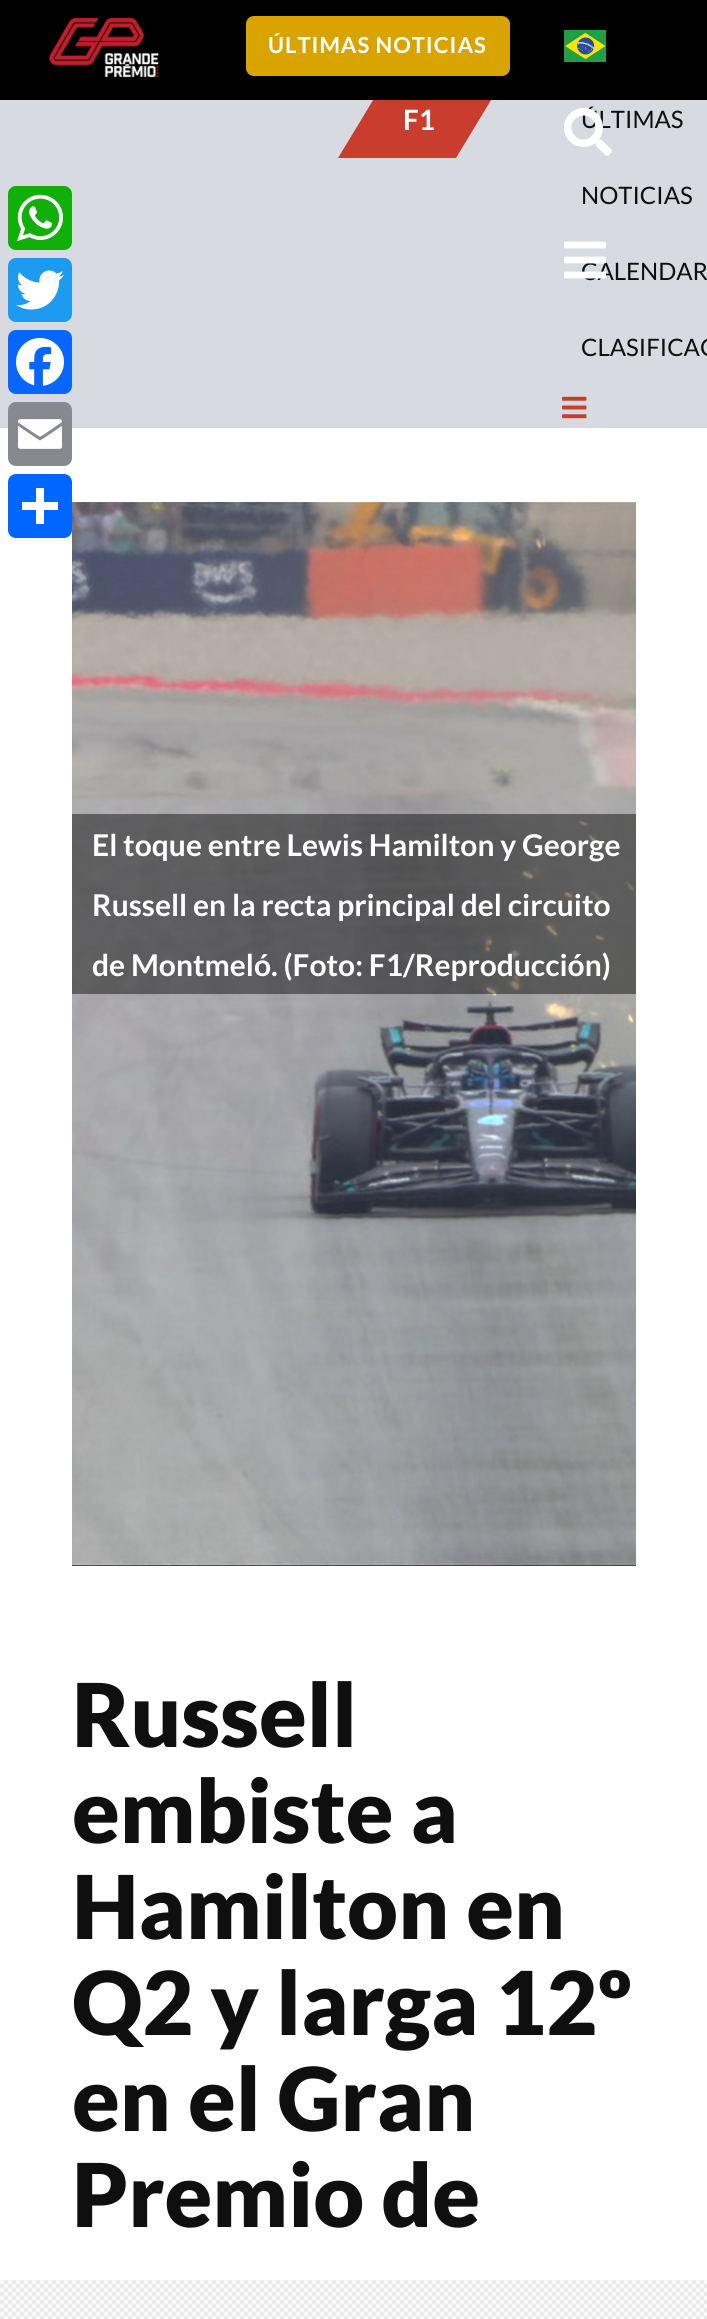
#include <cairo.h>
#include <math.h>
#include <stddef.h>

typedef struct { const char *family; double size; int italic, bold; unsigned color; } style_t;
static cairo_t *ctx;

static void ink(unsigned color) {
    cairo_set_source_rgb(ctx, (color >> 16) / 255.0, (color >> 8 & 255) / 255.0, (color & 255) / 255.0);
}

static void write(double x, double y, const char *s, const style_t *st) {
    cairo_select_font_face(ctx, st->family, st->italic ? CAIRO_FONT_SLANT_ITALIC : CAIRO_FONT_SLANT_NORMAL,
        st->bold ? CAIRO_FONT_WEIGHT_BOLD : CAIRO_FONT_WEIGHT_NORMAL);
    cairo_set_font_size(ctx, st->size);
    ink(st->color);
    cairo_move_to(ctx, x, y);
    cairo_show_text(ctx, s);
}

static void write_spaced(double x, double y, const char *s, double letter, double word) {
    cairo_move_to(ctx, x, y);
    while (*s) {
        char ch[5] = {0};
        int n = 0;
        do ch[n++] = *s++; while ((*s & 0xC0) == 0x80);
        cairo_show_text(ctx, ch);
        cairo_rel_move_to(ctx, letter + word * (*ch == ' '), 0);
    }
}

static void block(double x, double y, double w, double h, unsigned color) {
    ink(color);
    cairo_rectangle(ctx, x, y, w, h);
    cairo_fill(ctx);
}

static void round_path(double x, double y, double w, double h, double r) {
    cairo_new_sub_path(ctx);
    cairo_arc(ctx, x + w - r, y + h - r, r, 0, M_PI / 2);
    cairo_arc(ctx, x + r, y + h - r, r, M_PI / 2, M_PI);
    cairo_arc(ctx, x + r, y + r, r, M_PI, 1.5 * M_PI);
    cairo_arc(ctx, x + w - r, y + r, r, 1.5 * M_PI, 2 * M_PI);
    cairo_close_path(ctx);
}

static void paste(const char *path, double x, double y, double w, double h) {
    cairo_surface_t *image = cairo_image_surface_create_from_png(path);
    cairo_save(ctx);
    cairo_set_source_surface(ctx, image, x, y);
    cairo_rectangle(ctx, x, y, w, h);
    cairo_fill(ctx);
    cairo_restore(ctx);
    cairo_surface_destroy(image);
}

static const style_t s1 = {"Lato", 24, 0, 0, 0x0f0f0f};
static const style_t s2 = {"Lato", 28, 0, 1, 0xffffff};
static const style_t s3 = {"Lato", 30, 0, 1, 0xffffff};
static const style_t s4 = {"Lato Black", 88, 0, 0, 0x0f0f0f};

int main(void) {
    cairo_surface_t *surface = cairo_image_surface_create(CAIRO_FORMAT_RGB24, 707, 2319);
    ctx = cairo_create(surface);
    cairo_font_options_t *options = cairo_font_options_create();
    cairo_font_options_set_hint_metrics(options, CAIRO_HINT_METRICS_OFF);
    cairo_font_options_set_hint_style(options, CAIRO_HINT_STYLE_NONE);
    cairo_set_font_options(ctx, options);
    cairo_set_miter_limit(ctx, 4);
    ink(0xffffff);
    cairo_paint(ctx);
    block(0, 100, 707, 328, 0xd7dbe1);
    ink(0xc93d2e);
    cairo_new_path(ctx);
    cairo_move_to(ctx, 384, 158);
    cairo_line_to(ctx, 338, 158);
    cairo_line_to(ctx, 384, 82);
    cairo_close_path(ctx);
    cairo_fill(ctx);
    cairo_new_path(ctx);
    cairo_move_to(ctx, 456, 82);
    cairo_line_to(ctx, 502, 82);
    cairo_line_to(ctx, 456, 158);
    cairo_close_path(ctx);
    cairo_fill(ctx);
    block(0, 0, 707, 100, 0x000000);
    paste("pic1.png", 49, 18, 110, 60);
    ink(0xdaa400);
    round_path(246, 16, 264, 60, 8);
    cairo_fill(ctx);
    cairo_select_font_face(ctx, "Lato", CAIRO_FONT_SLANT_NORMAL, CAIRO_FONT_WEIGHT_BOLD);
    cairo_set_font_size(ctx, 22);
    ink(0xffffff);
    write_spaced(268, 53, "ÚLTIMAS NOTICIAS", 1, 0);
    paste("pic2.png", 564, 30, 42, 32);
    write(581, 128, "ÚLTIMAS", &s1);
    paste("pic3.png", 564, 108, 48, 48);
    write(581, 280, "CALENDAR", &s1);
    paste("pic4.png", 564, 241, 42, 38);
    ink(0x12af0a);
    round_path(8, 186, 64, 64, 8);
    cairo_fill(ctx);
    paste("pic5.png", 17, 194, 46, 48);
    ink(0x1d9bf0);
    round_path(8, 258, 64, 64, 8);
    cairo_fill(ctx);
    paste("pic6.png", 16, 270, 48, 40);
    ink(0x0866ff);
    round_path(8, 330, 64, 64, 8);
    cairo_fill(ctx);
    paste("pic7.png", 16, 338, 48, 48);
    ink(0x888990);
    round_path(8, 402, 64, 64, 8);
    cairo_fill(ctx);
    paste("pic8.png", 18, 419, 44, 30);
    ink(0x0166ff);
    round_path(8, 474, 64, 64, 8);
    cairo_fill(ctx);
    block(36, 488, 8, 36, 0xffffff);
    block(22, 502, 36, 8, 0xffffff);
    block(384, 100, 72, 58, 0xc93d2e);
    write(403, 130, "F1", &s2);
    write(581, 204, "NOTICIAS", &s1);
    write(581, 356, "CLASIFICAC", &s1);
    paste("pic9.png", 562, 396, 25, 23);
    paste("pic10.png", 72, 502, 564, 1064);
    cairo_set_source_rgba(ctx, 0, 0, 0, 0.45);
    cairo_rectangle(ctx, 72, 814, 564, 180);
    cairo_fill(ctx);
    write(92, 856, "El toque entre Lewis Hamilton y George", &s3);
    write(92, 916, "Russell en la recta principal del circuito", &s3);
    write(92, 976, "de Montmeló. (Foto: F1/Reproducción)", &s3);
    write(72, 1747, "Russell", &s4);
    write(72, 1843, "embiste a", &s4);
    write(72, 1939, "Hamilton en", &s4);
    write(72, 2035, "Q2 y larga 12º", &s4);
    write(72, 2131, "en el Gran", &s4);
    write(72, 2227, "Premio de", &s4);
    paste("pic11.png", 0, 2280, 707, 39);
    cairo_surface_write_to_png(surface, "screenshot.png");
    cairo_font_options_destroy(options);
    cairo_destroy(ctx);
    cairo_surface_destroy(surface);
    return 0;
}
